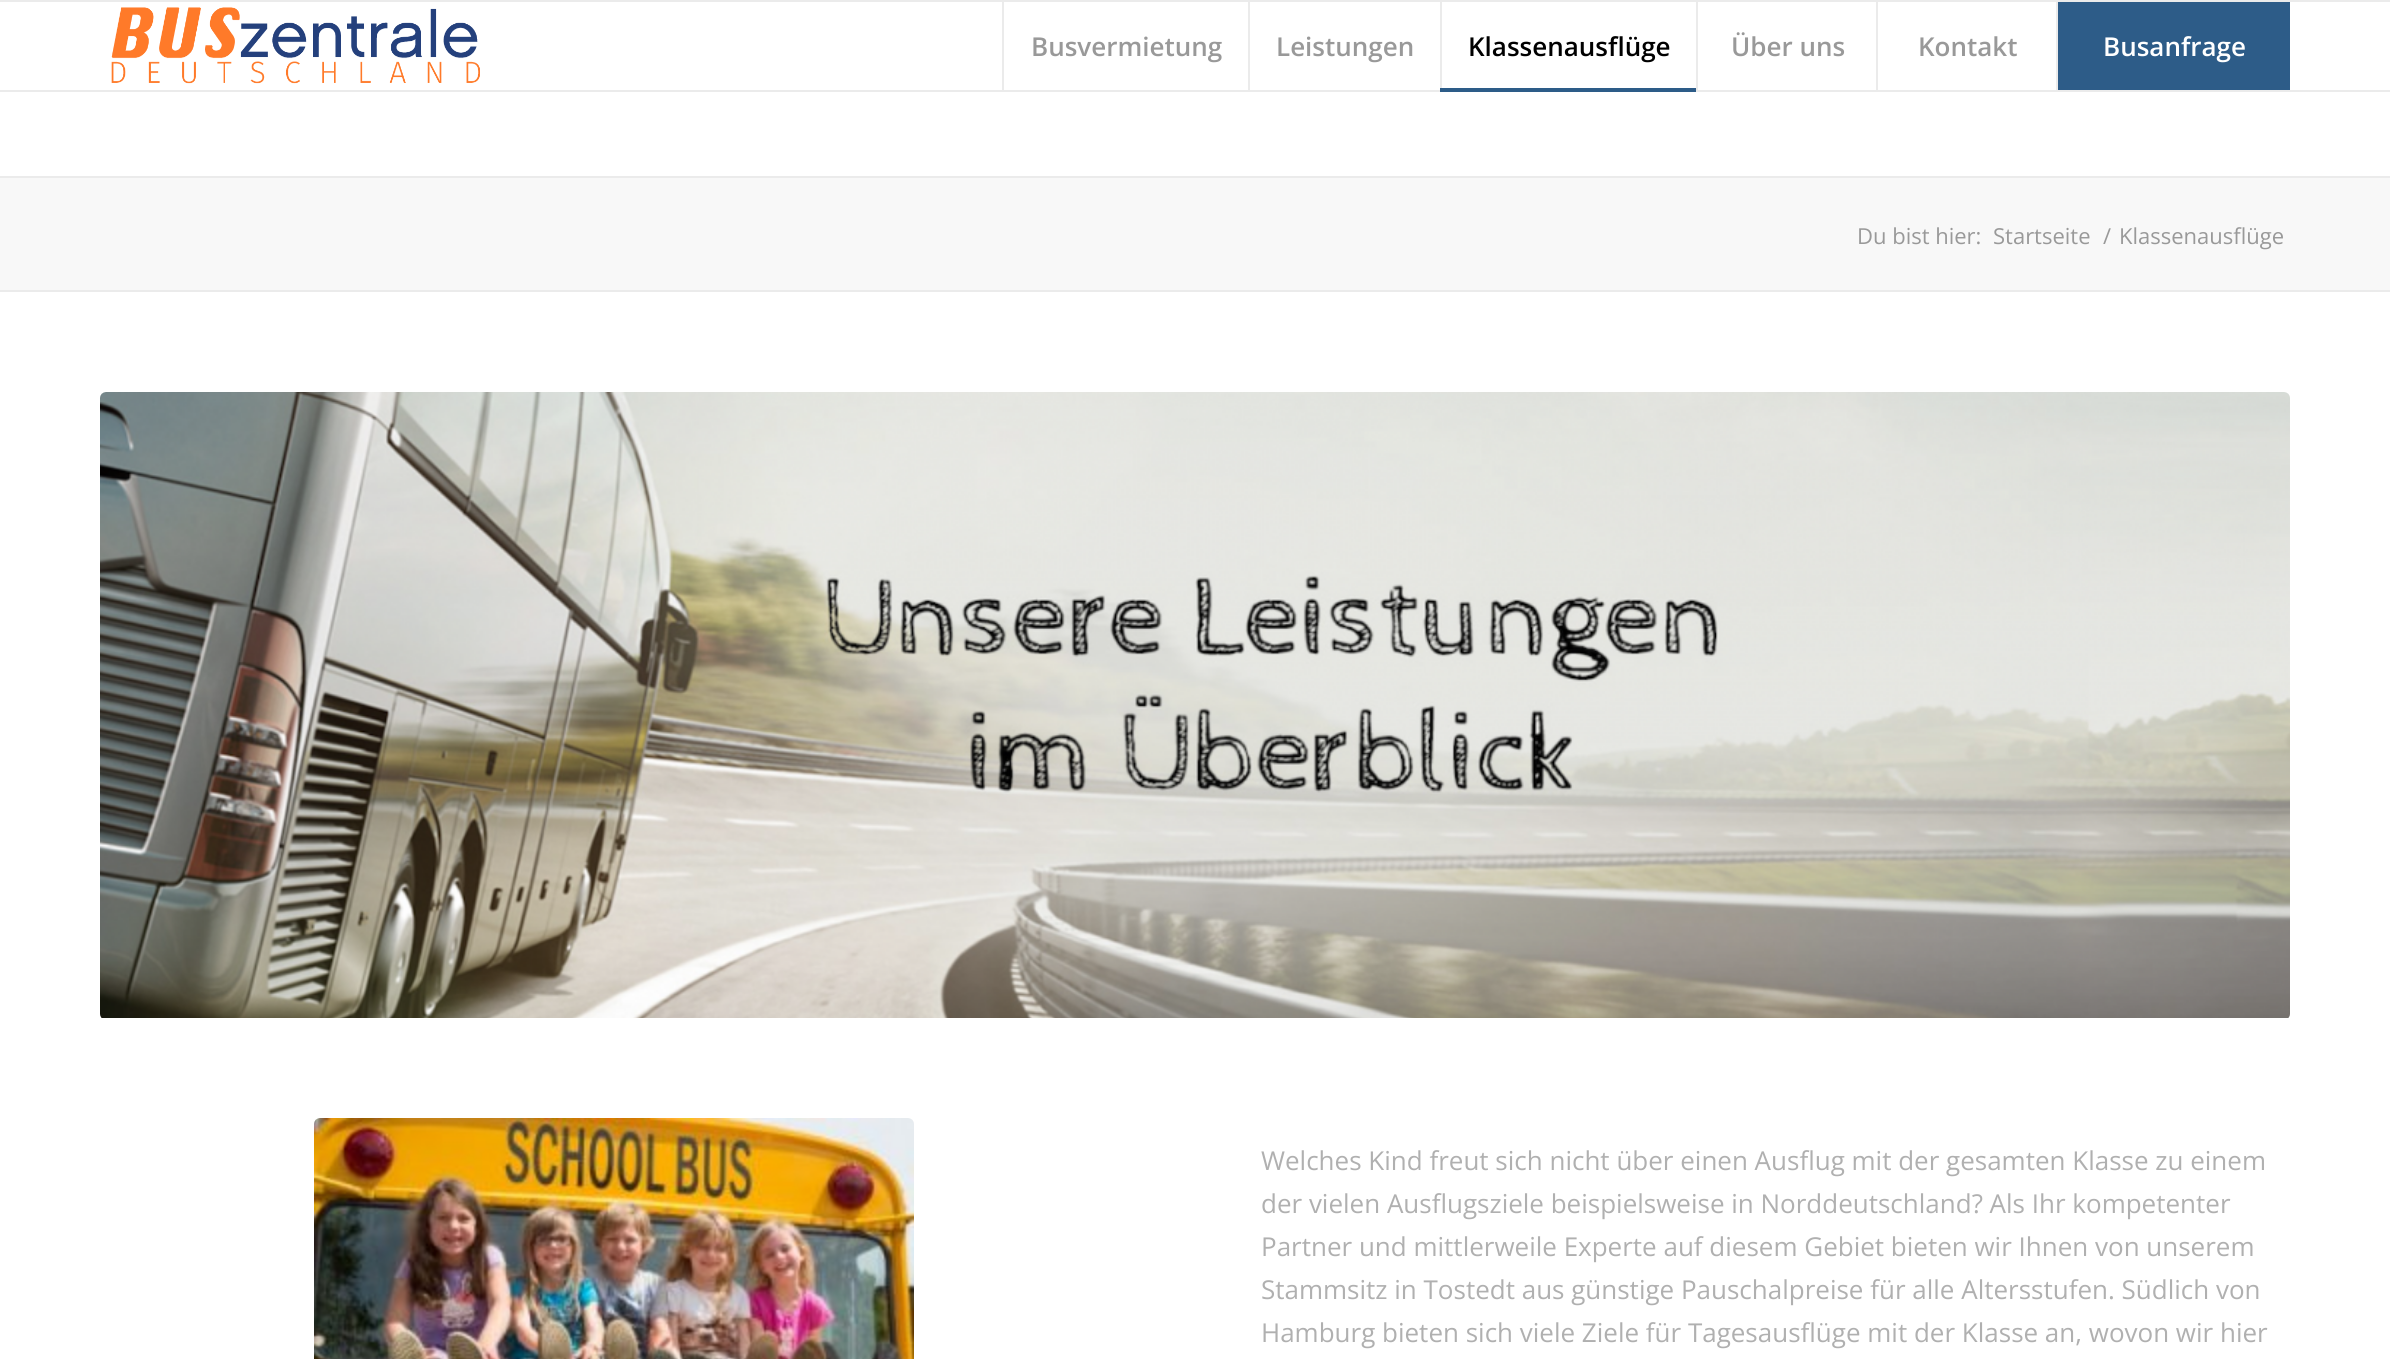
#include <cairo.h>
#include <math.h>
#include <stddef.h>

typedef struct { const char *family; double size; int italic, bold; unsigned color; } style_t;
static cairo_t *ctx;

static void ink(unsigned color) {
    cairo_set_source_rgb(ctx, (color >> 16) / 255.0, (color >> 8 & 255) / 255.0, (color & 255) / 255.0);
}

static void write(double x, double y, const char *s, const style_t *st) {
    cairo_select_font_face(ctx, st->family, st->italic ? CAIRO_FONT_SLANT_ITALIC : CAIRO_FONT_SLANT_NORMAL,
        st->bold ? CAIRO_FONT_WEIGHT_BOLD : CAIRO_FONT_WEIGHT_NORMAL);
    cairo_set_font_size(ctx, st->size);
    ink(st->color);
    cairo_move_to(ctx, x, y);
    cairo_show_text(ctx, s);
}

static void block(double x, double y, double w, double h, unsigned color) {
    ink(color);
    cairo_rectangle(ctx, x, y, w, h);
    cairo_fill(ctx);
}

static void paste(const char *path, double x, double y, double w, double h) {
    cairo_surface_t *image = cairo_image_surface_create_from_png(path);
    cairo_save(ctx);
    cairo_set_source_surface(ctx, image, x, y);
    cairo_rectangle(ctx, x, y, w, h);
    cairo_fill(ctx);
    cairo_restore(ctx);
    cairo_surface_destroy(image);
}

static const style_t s1 = {"Open Sans SemiBold", 26, 0, 0, 0x999999};
static const style_t s2 = {"Open Sans SemiBold", 26, 0, 0, 0x000000};
static const style_t s3 = {"Open Sans SemiBold", 26, 0, 0, 0xffffff};
static const style_t s4 = {"Open Sans", 22, 0, 0, 0x999999};
static const style_t s5 = {"Open Sans", 26, 0, 0, 0xb0b0b0};

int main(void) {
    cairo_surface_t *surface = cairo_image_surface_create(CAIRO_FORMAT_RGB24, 2390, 1359);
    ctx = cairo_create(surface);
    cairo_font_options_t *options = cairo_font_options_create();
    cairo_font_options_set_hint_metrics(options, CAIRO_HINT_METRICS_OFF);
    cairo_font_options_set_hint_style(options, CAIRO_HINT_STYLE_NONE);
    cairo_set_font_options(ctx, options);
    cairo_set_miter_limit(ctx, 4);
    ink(0xffffff);
    cairo_paint(ctx);
    block(0, 0, 2390, 2, 0xebebeb);
    block(0, 90, 2390, 2, 0xebebeb);
    paste("pic1.png", 111, 7, 369, 77);
    block(1002, 2, 2, 88, 0xebebeb);
    write(1031, 56, "Busvermietung", &s1);
    block(1248, 2, 2, 88, 0xebebeb);
    write(1276, 56, "Leistungen", &s1);
    block(1440, 2, 2, 88, 0xebebeb);
    write(1468, 56, "Klassenausflüge", &s2);
    block(1440, 88, 256, 4, 0x2d5c88);
    block(1696, 2, 2, 88, 0xebebeb);
    write(1731, 56, "Über uns", &s1);
    block(1876, 2, 2, 88, 0xebebeb);
    write(1918, 56, "Kontakt", &s1);
    block(2058, 2, 232, 88, 0x2d5c88);
    block(2056, 2, 2, 88, 0xebebeb);
    write(2103, 56, "Busanfrage", &s3);
    block(0, 178, 2390, 112, 0xf8f8f8);
    block(0, 176, 2390, 2, 0xebebeb);
    write(1857, 244, "Du bist hier:", &s4);
    write(1993, 244, "Startseite", &s4);
    write(2103, 244, "/", &s4);
    write(2119, 244, "Klassenausflüge", &s4);
    block(0, 290, 2390, 2, 0xebebeb);
    paste("pic2.png", 100, 392, 2190, 626);
    paste("pic3.png", 314, 1118, 600, 241);
    write(1261, 1170, "Welches Kind freut sich nicht über einen Ausflug mit der gesamten Klasse zu einem", &s5);
    write(1261, 1213, "der vielen Ausflugsziele beispielsweise in Norddeutschland? Als Ihr kompetenter", &s5);
    write(1261, 1256, "Partner und mittlerweile Experte auf diesem Gebiet bieten wir Ihnen von unserem", &s5);
    write(1261, 1299, "Stammsitz in Tostedt aus günstige Pauschalpreise für alle Altersstufen. Südlich von", &s5);
    write(1261, 1342, "Hamburg bieten sich viele Ziele für Tagesausflüge mit der Klasse an, wovon wir hier", &s5);
    cairo_surface_write_to_png(surface, "screenshot.png");
    cairo_font_options_destroy(options);
    cairo_destroy(ctx);
    cairo_surface_destroy(surface);
    return 0;
}
